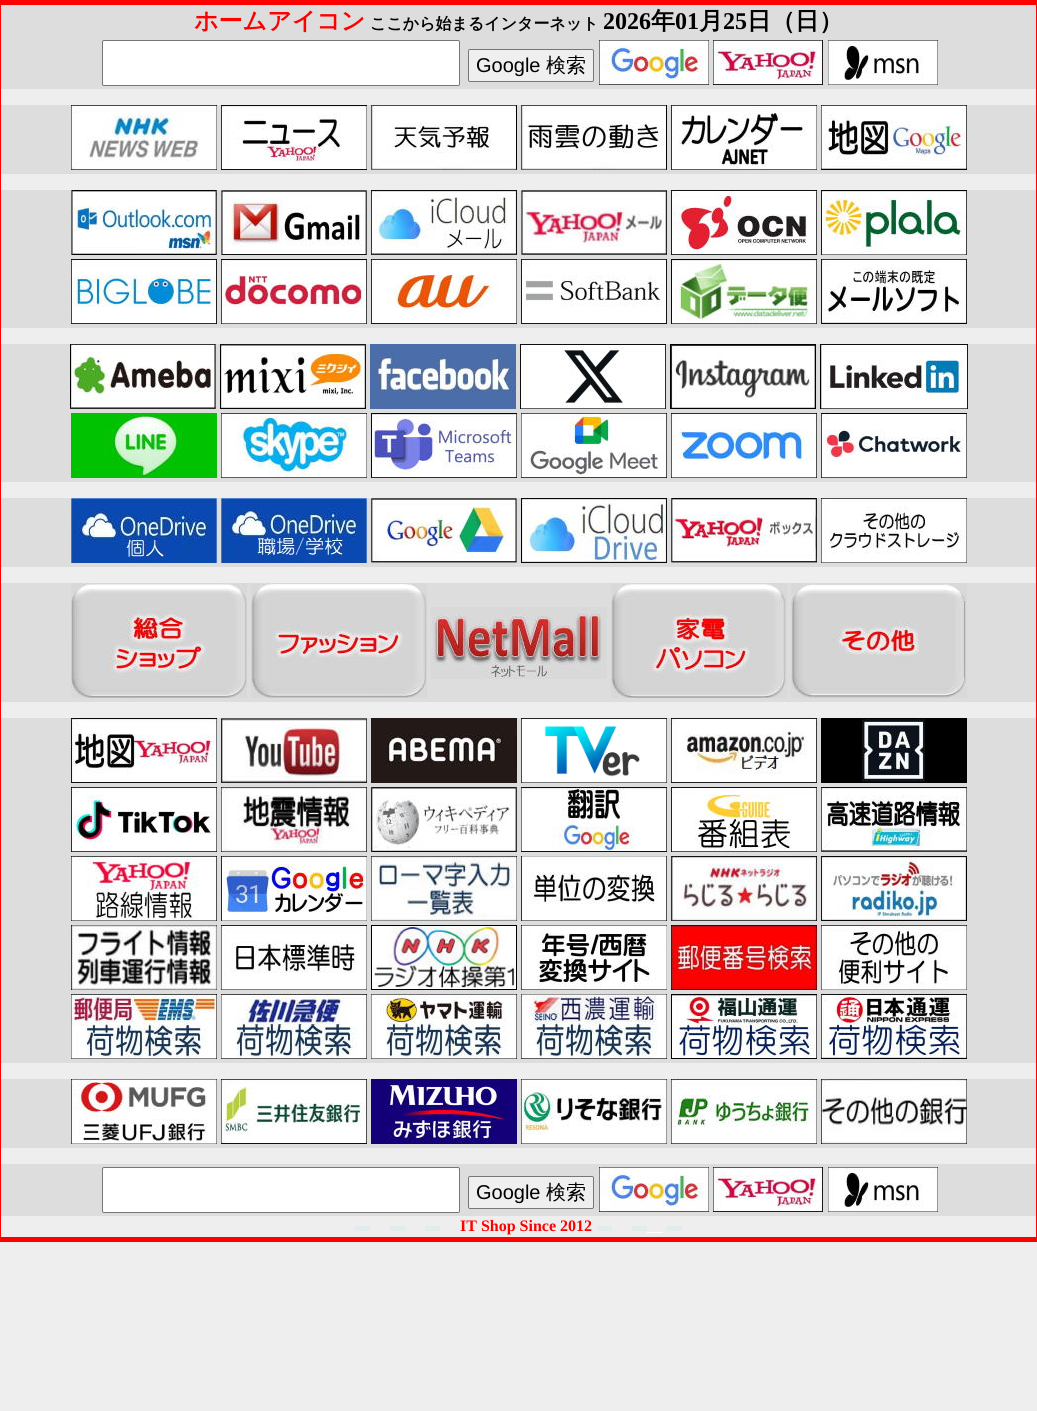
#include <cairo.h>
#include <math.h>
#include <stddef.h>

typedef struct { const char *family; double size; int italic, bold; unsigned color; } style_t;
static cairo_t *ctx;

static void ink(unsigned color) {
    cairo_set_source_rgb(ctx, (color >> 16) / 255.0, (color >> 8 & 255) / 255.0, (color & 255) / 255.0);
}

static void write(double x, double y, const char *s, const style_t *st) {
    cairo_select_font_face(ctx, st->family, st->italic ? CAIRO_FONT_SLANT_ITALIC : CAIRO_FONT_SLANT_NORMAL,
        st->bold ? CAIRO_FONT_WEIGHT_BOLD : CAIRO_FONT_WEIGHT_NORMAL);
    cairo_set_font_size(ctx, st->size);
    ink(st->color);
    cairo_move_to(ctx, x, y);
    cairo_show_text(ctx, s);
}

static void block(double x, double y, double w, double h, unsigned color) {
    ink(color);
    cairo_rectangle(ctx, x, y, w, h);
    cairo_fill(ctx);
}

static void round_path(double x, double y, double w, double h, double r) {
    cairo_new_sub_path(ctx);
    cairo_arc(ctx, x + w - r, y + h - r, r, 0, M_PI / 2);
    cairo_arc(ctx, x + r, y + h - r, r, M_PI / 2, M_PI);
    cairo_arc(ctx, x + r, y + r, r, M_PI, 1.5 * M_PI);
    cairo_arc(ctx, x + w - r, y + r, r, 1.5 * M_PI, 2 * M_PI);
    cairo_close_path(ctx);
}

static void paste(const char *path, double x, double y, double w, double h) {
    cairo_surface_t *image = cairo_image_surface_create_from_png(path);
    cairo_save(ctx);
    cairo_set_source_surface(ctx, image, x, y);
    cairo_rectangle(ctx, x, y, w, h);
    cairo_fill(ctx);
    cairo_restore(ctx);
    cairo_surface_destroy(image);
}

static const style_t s1 = {"WenQuanYi Zen Hei", 24, 0, 1, 0xff0000};
static const style_t s2 = {"WenQuanYi Zen Hei", 16, 0, 1, 0x000000};
static const style_t s3 = {"Liberation Serif", 24, 0, 1, 0x000000};
static const style_t s4 = {"WenQuanYi Zen Hei", 24, 0, 1, 0x000000};
static const style_t s5 = {"Liberation Sans", 20, 0, 0, 0x000000};
static const style_t s6 = {"WenQuanYi Zen Hei Medium", 20, 0, 0, 0x000000};
static const style_t s7 = {"Liberation Serif", 16, 0, 1, 0xff0000};

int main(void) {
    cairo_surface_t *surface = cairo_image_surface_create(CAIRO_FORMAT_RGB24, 1037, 1411);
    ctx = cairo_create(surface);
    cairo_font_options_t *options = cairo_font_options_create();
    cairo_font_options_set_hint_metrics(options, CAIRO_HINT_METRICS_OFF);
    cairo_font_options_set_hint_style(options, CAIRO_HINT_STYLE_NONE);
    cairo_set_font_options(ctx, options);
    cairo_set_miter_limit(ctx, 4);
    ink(0xeeeeee);
    cairo_paint(ctx);
    block(0, 0, 1037, 5, 0xff0000);
    block(1036, 0, 1, 1242, 0xff0000);
    block(0, 1237, 1037, 5, 0xff0000);
    block(0, 0, 1, 1242, 0xff0000);
    block(1, 5, 1035, 84, 0xdddddd);
    write(194, 29, "ホームアイコン", &s1);
    write(370, 29, "ここから始まるインターネット", &s2);
    write(603, 29, "2026", &s3);
    write(651, 29, "年", &s4);
    write(675, 29, "01", &s3);
    write(699, 29, "月", &s4);
    write(723, 29, "25", &s3);
    write(747, 29, "日（日）", &s4);
    ink(0xffffff);
    round_path(102.5, 40.5, 357, 45, 1.5);
    cairo_fill_preserve(ctx);
    ink(0x767676);
    cairo_set_line_width(ctx, 1);
    cairo_stroke(ctx);
    ink(0xefefef);
    round_path(468.5, 49.5, 125, 32, 1.5);
    cairo_fill_preserve(ctx);
    ink(0x767676);
    cairo_stroke(ctx);
    write(476, 72, "Google", &s5);
    write(546, 72, "検索", &s6);
    paste("pic1.png", 599, 40, 110, 45);
    paste("pic2.png", 713, 40, 110, 45);
    paste("pic3.png", 828, 40, 110, 45);
    block(1, 105, 1035, 69, 0xdddddd);
    paste("pic4.png", 71, 105, 146, 65);
    paste("pic5.png", 221, 105, 146, 65);
    paste("pic6.png", 371, 105, 146, 65);
    paste("pic7.png", 521, 105, 146, 65);
    paste("pic8.png", 671, 105, 146, 65);
    paste("pic9.png", 821, 105, 146, 65);
    block(1, 190, 1035, 138, 0xdddddd);
    paste("pic10.png", 71, 190, 146, 65);
    paste("pic11.png", 221, 190, 146, 65);
    paste("pic12.png", 371, 190, 146, 65);
    paste("pic13.png", 521, 190, 146, 65);
    paste("pic14.png", 671, 190, 146, 65);
    paste("pic15.png", 821, 190, 146, 65);
    paste("pic16.png", 71, 259, 146, 65);
    paste("pic17.png", 221, 259, 146, 65);
    paste("pic18.png", 371, 259, 146, 65);
    paste("pic19.png", 521, 259, 146, 65);
    paste("pic20.png", 671, 259, 146, 65);
    paste("pic21.png", 821, 259, 146, 65);
    block(1, 344, 1035, 138, 0xdddddd);
    paste("pic22.png", 70, 344, 146, 65);
    paste("pic23.png", 220, 344, 146, 65);
    paste("pic24.png", 370, 344, 146, 65);
    paste("pic25.png", 520, 344, 146, 65);
    cairo_rectangle(ctx, 670.5, 344.5, 145, 64);
    ink(0x000000);
    cairo_stroke(ctx);
    paste("pic26.png", 820, 344, 148, 65);
    paste("pic27.png", 671, 345, 144, 63);
    paste("pic28.png", 71, 413, 146, 65);
    paste("pic29.png", 221, 413, 146, 65);
    paste("pic30.png", 371, 413, 146, 65);
    paste("pic31.png", 521, 413, 146, 65);
    paste("pic32.png", 671, 413, 146, 65);
    paste("pic33.png", 821, 413, 146, 65);
    block(1, 498, 1035, 69, 0xdddddd);
    paste("pic34.png", 71, 498, 146, 65);
    paste("pic35.png", 221, 498, 146, 65);
    paste("pic36.png", 371, 498, 146, 65);
    paste("pic37.png", 521, 498, 146, 65);
    paste("pic38.png", 671, 498, 146, 65);
    paste("pic39.png", 821, 498, 146, 65);
    block(1, 583, 1035, 119, 0xdddddd);
    paste("pic40.png", 71, 583, 176, 115);
    paste("pic41.png", 251, 583, 176, 115);
    paste("pic42.png", 431, 607, 176, 72);
    paste("pic43.png", 611, 583, 176, 115);
    paste("pic44.png", 791, 583, 176, 115);
    block(1, 718, 1035, 345, 0xdddddd);
    paste("pic45.png", 71, 718, 146, 65);
    paste("pic46.png", 221, 718, 146, 65);
    paste("pic47.png", 371, 718, 146, 65);
    paste("pic48.png", 521, 718, 146, 65);
    paste("pic49.png", 671, 718, 146, 65);
    paste("pic50.png", 821, 718, 146, 65);
    paste("pic51.png", 71, 787, 146, 65);
    paste("pic52.png", 221, 787, 146, 65);
    paste("pic53.png", 371, 787, 146, 65);
    paste("pic54.png", 521, 787, 146, 65);
    paste("pic55.png", 671, 787, 146, 65);
    paste("pic56.png", 821, 787, 146, 65);
    paste("pic57.png", 71, 856, 146, 65);
    paste("pic58.png", 221, 856, 146, 65);
    paste("pic59.png", 371, 856, 146, 65);
    paste("pic60.png", 521, 856, 146, 65);
    paste("pic61.png", 671, 856, 146, 65);
    paste("pic62.png", 821, 856, 146, 65);
    paste("pic63.png", 71, 925, 146, 65);
    paste("pic64.png", 221, 925, 146, 65);
    cairo_rectangle(ctx, 371.5, 925.5, 145, 64);
    ink(0x000000);
    cairo_stroke(ctx);
    paste("pic65.png", 521, 925, 146, 65);
    paste("pic66.png", 671, 925, 146, 65);
    paste("pic67.png", 821, 925, 146, 65);
    paste("pic68.png", 372, 926, 144, 63);
    paste("pic69.png", 71, 994, 146, 65);
    paste("pic70.png", 221, 994, 146, 65);
    paste("pic71.png", 371, 994, 146, 65);
    paste("pic72.png", 521, 994, 146, 65);
    paste("pic73.png", 671, 994, 146, 65);
    paste("pic74.png", 821, 994, 146, 65);
    block(1, 1079, 1035, 69, 0xdddddd);
    paste("pic75.png", 71, 1079, 146, 65);
    paste("pic76.png", 221, 1079, 146, 65);
    paste("pic77.png", 371, 1079, 146, 65);
    paste("pic78.png", 521, 1079, 146, 65);
    paste("pic79.png", 671, 1079, 146, 65);
    paste("pic80.png", 821, 1079, 146, 65);
    block(1, 1164, 1035, 52, 0xdddddd);
    ink(0xffffff);
    round_path(102.5, 1167.5, 357, 45, 1.5);
    cairo_fill_preserve(ctx);
    ink(0x767676);
    cairo_stroke(ctx);
    ink(0xefefef);
    round_path(468.5, 1176.5, 125, 32, 1.5);
    cairo_fill_preserve(ctx);
    ink(0x767676);
    cairo_stroke(ctx);
    write(476, 1199, "Google", &s5);
    write(546, 1199, "検索", &s6);
    paste("pic1.png", 599, 1167, 110, 45);
    paste("pic2.png", 713, 1167, 110, 45);
    paste("pic3.png", 828, 1167, 110, 45);
    block(355, 1226, 15, 5, 0xe2eced);
    block(390, 1226, 15, 5, 0xe2eced);
    block(425, 1226, 15, 5, 0xe2eced);
    write(460, 1231, "IT Shop Since 2012", &s7);
    block(597, 1226, 15, 5, 0xe2eced);
    block(632, 1226, 15, 5, 0xe2eced);
    block(667, 1226, 15, 5, 0xe2eced);
    block(647, 1232, 16, 1, 0xffffff);
    cairo_surface_write_to_png(surface, "screenshot.png");
    cairo_font_options_destroy(options);
    cairo_destroy(ctx);
    cairo_surface_destroy(surface);
    return 0;
}
